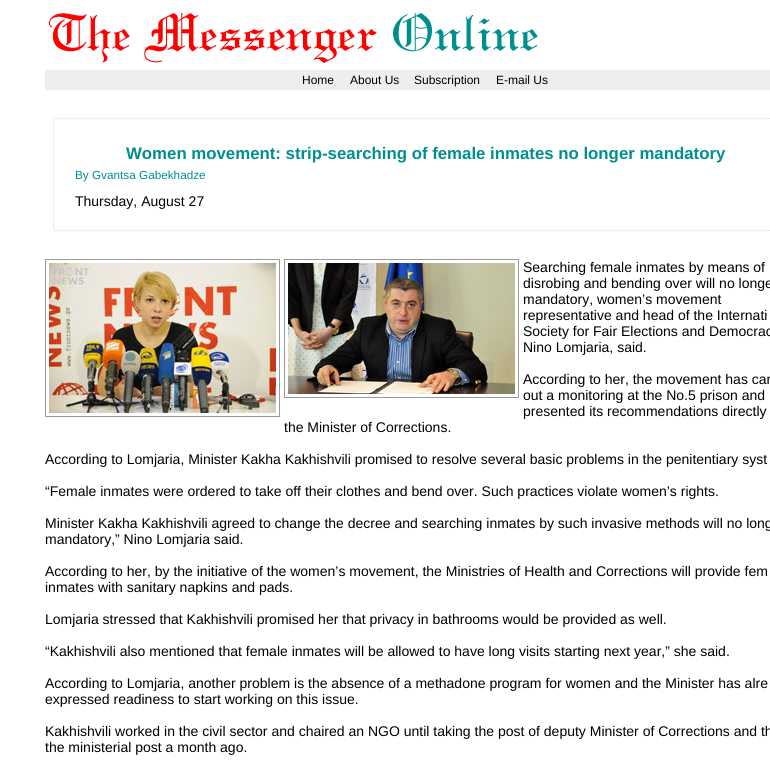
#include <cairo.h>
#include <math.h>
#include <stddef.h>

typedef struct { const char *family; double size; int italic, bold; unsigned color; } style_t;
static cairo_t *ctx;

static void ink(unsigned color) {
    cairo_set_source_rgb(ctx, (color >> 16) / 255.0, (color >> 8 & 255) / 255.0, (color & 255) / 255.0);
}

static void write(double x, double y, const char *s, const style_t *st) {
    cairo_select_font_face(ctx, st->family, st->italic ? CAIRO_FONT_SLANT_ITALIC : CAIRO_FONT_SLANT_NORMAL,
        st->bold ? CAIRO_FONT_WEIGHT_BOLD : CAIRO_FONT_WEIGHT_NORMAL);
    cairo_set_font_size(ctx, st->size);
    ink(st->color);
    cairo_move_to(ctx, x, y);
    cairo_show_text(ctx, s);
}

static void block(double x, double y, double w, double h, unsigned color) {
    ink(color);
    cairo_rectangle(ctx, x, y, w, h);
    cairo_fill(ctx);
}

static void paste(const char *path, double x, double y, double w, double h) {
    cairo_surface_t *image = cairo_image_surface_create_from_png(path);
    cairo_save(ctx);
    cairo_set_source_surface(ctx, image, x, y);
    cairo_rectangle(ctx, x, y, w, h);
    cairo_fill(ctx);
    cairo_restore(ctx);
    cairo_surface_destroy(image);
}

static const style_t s1 = {"Liberation Sans", 12, 0, 0, 0x000000};
static const style_t s2 = {"Liberation Sans", 16.8, 0, 1, 0x008f8f};
static const style_t s3 = {"Liberation Sans", 11.75, 0, 0, 0x008f8f};
static const style_t s4 = {"Liberation Sans", 14, 0, 0, 0x000000};

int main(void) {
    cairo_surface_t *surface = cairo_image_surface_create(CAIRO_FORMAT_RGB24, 770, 770);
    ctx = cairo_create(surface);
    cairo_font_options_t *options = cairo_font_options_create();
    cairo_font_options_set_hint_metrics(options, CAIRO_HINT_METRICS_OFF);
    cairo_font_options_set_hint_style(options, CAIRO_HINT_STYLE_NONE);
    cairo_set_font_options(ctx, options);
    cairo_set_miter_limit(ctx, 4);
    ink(0xffffff);
    cairo_paint(ctx);
    paste("pic1.png", 49, 13, 489, 50);
    block(45, 70, 725, 20, 0xeeeeee);
    write(302, 84, "Home", &s1);
    write(350, 84, "About Us", &s1);
    write(414, 84, "Subscription", &s1);
    write(496, 84, "E-mail Us", &s1);
    cairo_new_path(ctx);
    cairo_move_to(ctx, 53, 118.5);
    cairo_line_to(ctx, 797, 118.5);
    ink(0xdddddd);
    cairo_set_line_width(ctx, 1);
    cairo_set_dash(ctx, (double[]){1, 1}, 2, 0);
    cairo_stroke(ctx);
    cairo_new_path(ctx);
    cairo_move_to(ctx, 53, 230.5);
    cairo_line_to(ctx, 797, 230.5);
    cairo_stroke(ctx);
    cairo_new_path(ctx);
    cairo_move_to(ctx, 53.5, 118);
    cairo_line_to(ctx, 53.5, 231);
    cairo_stroke(ctx);
    write(126, 159, "Women movement: strip-searching of female inmates no longer mandatory", &s2);
    write(75, 179, "By Gvantsa Gabekhadze", &s3);
    write(75, 206, "Thursday, August 27", &s4);
    cairo_rectangle(ctx, 45.5, 259.5, 234, 157);
    ink(0x999999);
    cairo_set_dash(ctx, NULL, 0, 0);
    cairo_stroke(ctx);
    paste("pic2.png", 49, 263, 227, 150);
    cairo_rectangle(ctx, 284.5, 259.5, 234, 138);
    cairo_stroke(ctx);
    paste("pic3.png", 288, 263, 227, 131);
    write(523, 272, "Searching female inmates by means of", &s4);
    write(523, 288, "disrobing and bending over will no longe", &s4);
    write(523, 304, "mandatory, women’s movement", &s4);
    write(523, 320, "representative and head of the Internati", &s4);
    write(523, 336, "Society for Fair Elections and Democrac", &s4);
    write(523, 352, "Nino Lomjaria, said.", &s4);
    write(523, 384, "According to her, the movement has car", &s4);
    write(523, 400, "out a monitoring at the No.5 prison and", &s4);
    write(523, 416, "presented its recommendations directly", &s4);
    write(284, 432, "the Minister of Corrections.", &s4);
    write(45, 464, "According to Lomjaria, Minister Kakha Kakhishvili promised to resolve several basic problems in the penitentiary syst", &s4);
    write(45, 496, "“Female inmates were ordered to take off their clothes and bend over. Such practices violate women’s rights.", &s4);
    write(45, 528, "Minister Kakha Kakhishvili agreed to change the decree and searching inmates by such invasive methods will no long", &s4);
    write(45, 544, "mandatory,” Nino Lomjaria said.", &s4);
    write(45, 576, "According to her, by the initiative of the women’s movement, the Ministries of Health and Corrections will provide fem", &s4);
    write(45, 592, "inmates with sanitary napkins and pads.", &s4);
    write(45, 624, "Lomjaria stressed that Kakhishvili promised her that privacy in bathrooms would be provided as well.", &s4);
    write(45, 656, "“Kakhishvili also mentioned that female inmates will be allowed to have long visits starting next year,” she said.", &s4);
    write(45, 688, "According to Lomjaria, another problem is the absence of a methadone program for women and the Minister has alre", &s4);
    write(45, 704, "expressed readiness to start working on this issue.", &s4);
    write(45, 736, "Kakhishvili worked in the civil sector and chaired an NGO until taking the post of deputy Minister of Corrections and th", &s4);
    write(45, 752, "the ministerial post a month ago.", &s4);
    cairo_surface_write_to_png(surface, "screenshot.png");
    cairo_font_options_destroy(options);
    cairo_destroy(ctx);
    cairo_surface_destroy(surface);
    return 0;
}
